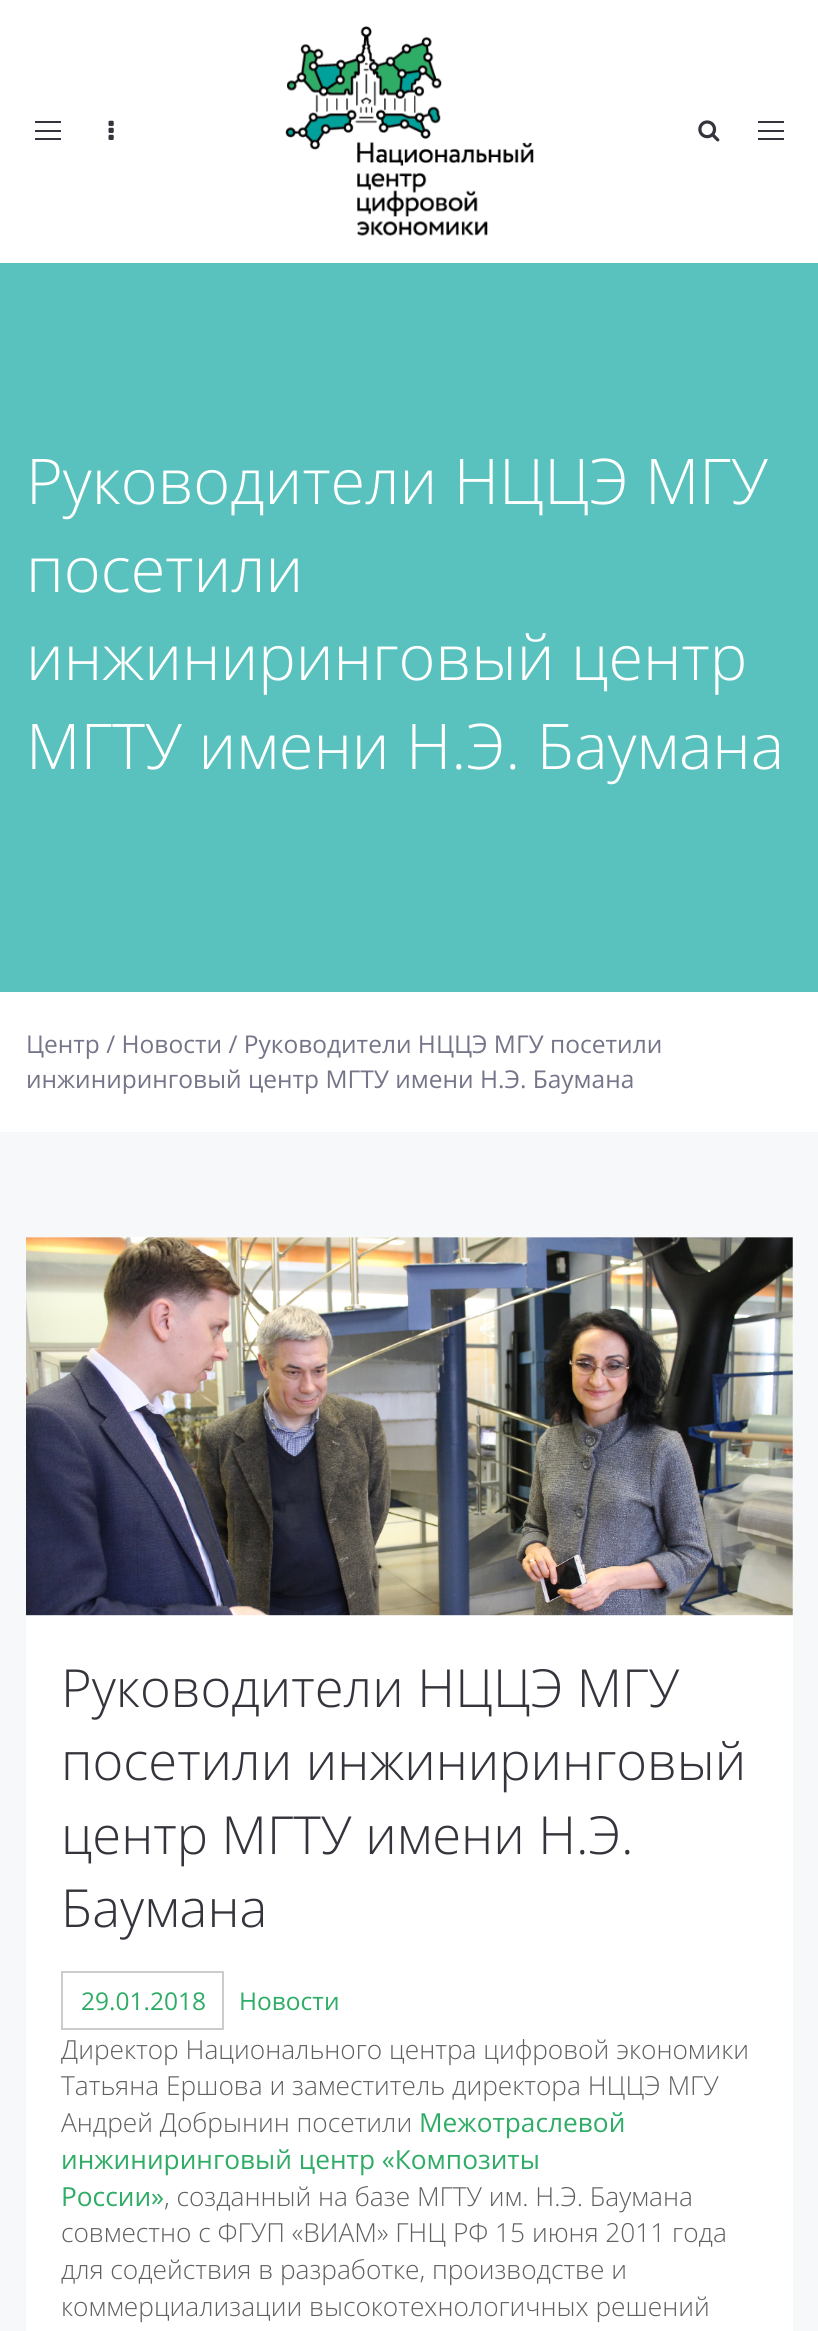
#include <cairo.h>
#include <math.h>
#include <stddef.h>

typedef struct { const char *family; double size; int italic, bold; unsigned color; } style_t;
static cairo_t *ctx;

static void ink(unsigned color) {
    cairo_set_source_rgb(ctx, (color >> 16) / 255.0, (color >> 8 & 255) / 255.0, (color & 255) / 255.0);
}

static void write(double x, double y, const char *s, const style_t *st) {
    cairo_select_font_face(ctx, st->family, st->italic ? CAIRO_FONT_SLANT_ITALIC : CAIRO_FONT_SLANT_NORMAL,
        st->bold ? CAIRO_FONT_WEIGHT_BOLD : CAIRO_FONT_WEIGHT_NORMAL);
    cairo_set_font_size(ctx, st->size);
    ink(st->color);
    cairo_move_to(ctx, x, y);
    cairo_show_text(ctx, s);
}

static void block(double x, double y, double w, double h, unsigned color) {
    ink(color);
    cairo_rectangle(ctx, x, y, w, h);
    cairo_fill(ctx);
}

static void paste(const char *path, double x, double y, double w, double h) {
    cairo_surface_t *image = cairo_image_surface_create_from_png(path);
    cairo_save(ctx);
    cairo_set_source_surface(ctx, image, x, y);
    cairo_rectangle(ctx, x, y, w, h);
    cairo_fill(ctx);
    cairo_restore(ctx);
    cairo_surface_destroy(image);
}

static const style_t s1 = {"Open Sans Light", 63, 0, 0, 0xffffff};
static const style_t s2 = {"Open Sans", 24.5, 0, 0, 0x757589};
static const style_t s3 = {"Open Sans Light", 52.5, 0, 0, 0x34343c};
static const style_t s4 = {"Open Sans", 24.5, 0, 0, 0x2fac66};
static const style_t s5 = {"Open Sans Light", 26.25, 0, 0, 0x606060};
static const style_t s6 = {"Open Sans", 26.25, 0, 0, 0x2fac66};

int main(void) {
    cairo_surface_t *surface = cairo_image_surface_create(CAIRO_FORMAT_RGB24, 818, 2331);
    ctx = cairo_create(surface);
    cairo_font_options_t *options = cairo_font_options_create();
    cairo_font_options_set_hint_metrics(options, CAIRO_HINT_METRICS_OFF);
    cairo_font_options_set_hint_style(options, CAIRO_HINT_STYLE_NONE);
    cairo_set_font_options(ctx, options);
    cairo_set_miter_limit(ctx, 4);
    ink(0xffffff);
    cairo_paint(ctx);
    block(35, 138, 26, 2, 0x34343c);
    block(35, 121, 26, 2, 0x34343c);
    block(35, 130, 26, 2, 0x34343c);
    paste("pic1.png", 108, 120, 6, 20);
    paste("pic2.png", 285, 26, 249, 210);
    paste("pic3.png", 698, 120, 22, 22);
    block(758, 138, 26, 2, 0x34343c);
    block(758, 121, 26, 2, 0x34343c);
    block(758, 130, 26, 2, 0x34343c);
    block(0, 263, 818, 729, 0x5ac2be);
    write(26, 504, "Руководители НЦЦЭ МГУ", &s1);
    write(26, 592, "посетили", &s1);
    write(26, 680, "инжиниринговый центр", &s1);
    write(26, 769, "МГТУ имени Н.Э. Баумана", &s1);
    write(26, 1053, "Центр / Новости / Руководители НЦЦЭ МГУ посетили", &s2);
    write(26, 1088, "инжиниринговый центр МГТУ имени Н.Э. Баумана", &s2);
    block(0, 1132, 818, 1199, 0xf7f8fa);
    block(26, 1237, 767, 1094, 0xffffff);
    paste("pic4.png", 26, 1237, 767, 379);
    write(61, 1707, "Руководители НЦЦЭ МГУ", &s3);
    write(61, 1780, "посетили инжиниринговый", &s3);
    write(61, 1854, "центр МГТУ имени Н.Э.", &s3);
    write(61, 1927, "Баумана", &s3);
    cairo_rectangle(ctx, 62, 1972, 161, 57);
    ink(0xcccccc);
    cairo_stroke(ctx);
    write(81, 2010, "29.01.2018", &s4);
    write(239, 2010, "Новости", &s4);
    write(61, 2059, "Директор Национального центра цифровой экономики", &s5);
    write(61, 2095, "Татьяна Ершова и заместитель директора НЦЦЭ МГУ", &s5);
    write(61, 2132, "Андрей Добрынин посетили", &s5);
    write(419, 2132, "Межотраслевой", &s6);
    write(61, 2169, "инжиниринговый центр «Композиты", &s6);
    write(61, 2206, "России»", &s6);
    write(164, 2206, ", созданный на базе МГТУ им. Н.Э. Баумана", &s5);
    write(61, 2242, "совместно с ФГУП «ВИАМ» ГНЦ РФ 15 июня 2011 года", &s5);
    write(61, 2279, "для содействия в разработке, производстве и", &s5);
    write(61, 2316, "коммерциализации высокотехнологичных решений", &s5);
    cairo_surface_write_to_png(surface, "screenshot.png");
    cairo_font_options_destroy(options);
    cairo_destroy(ctx);
    cairo_surface_destroy(surface);
    return 0;
}
